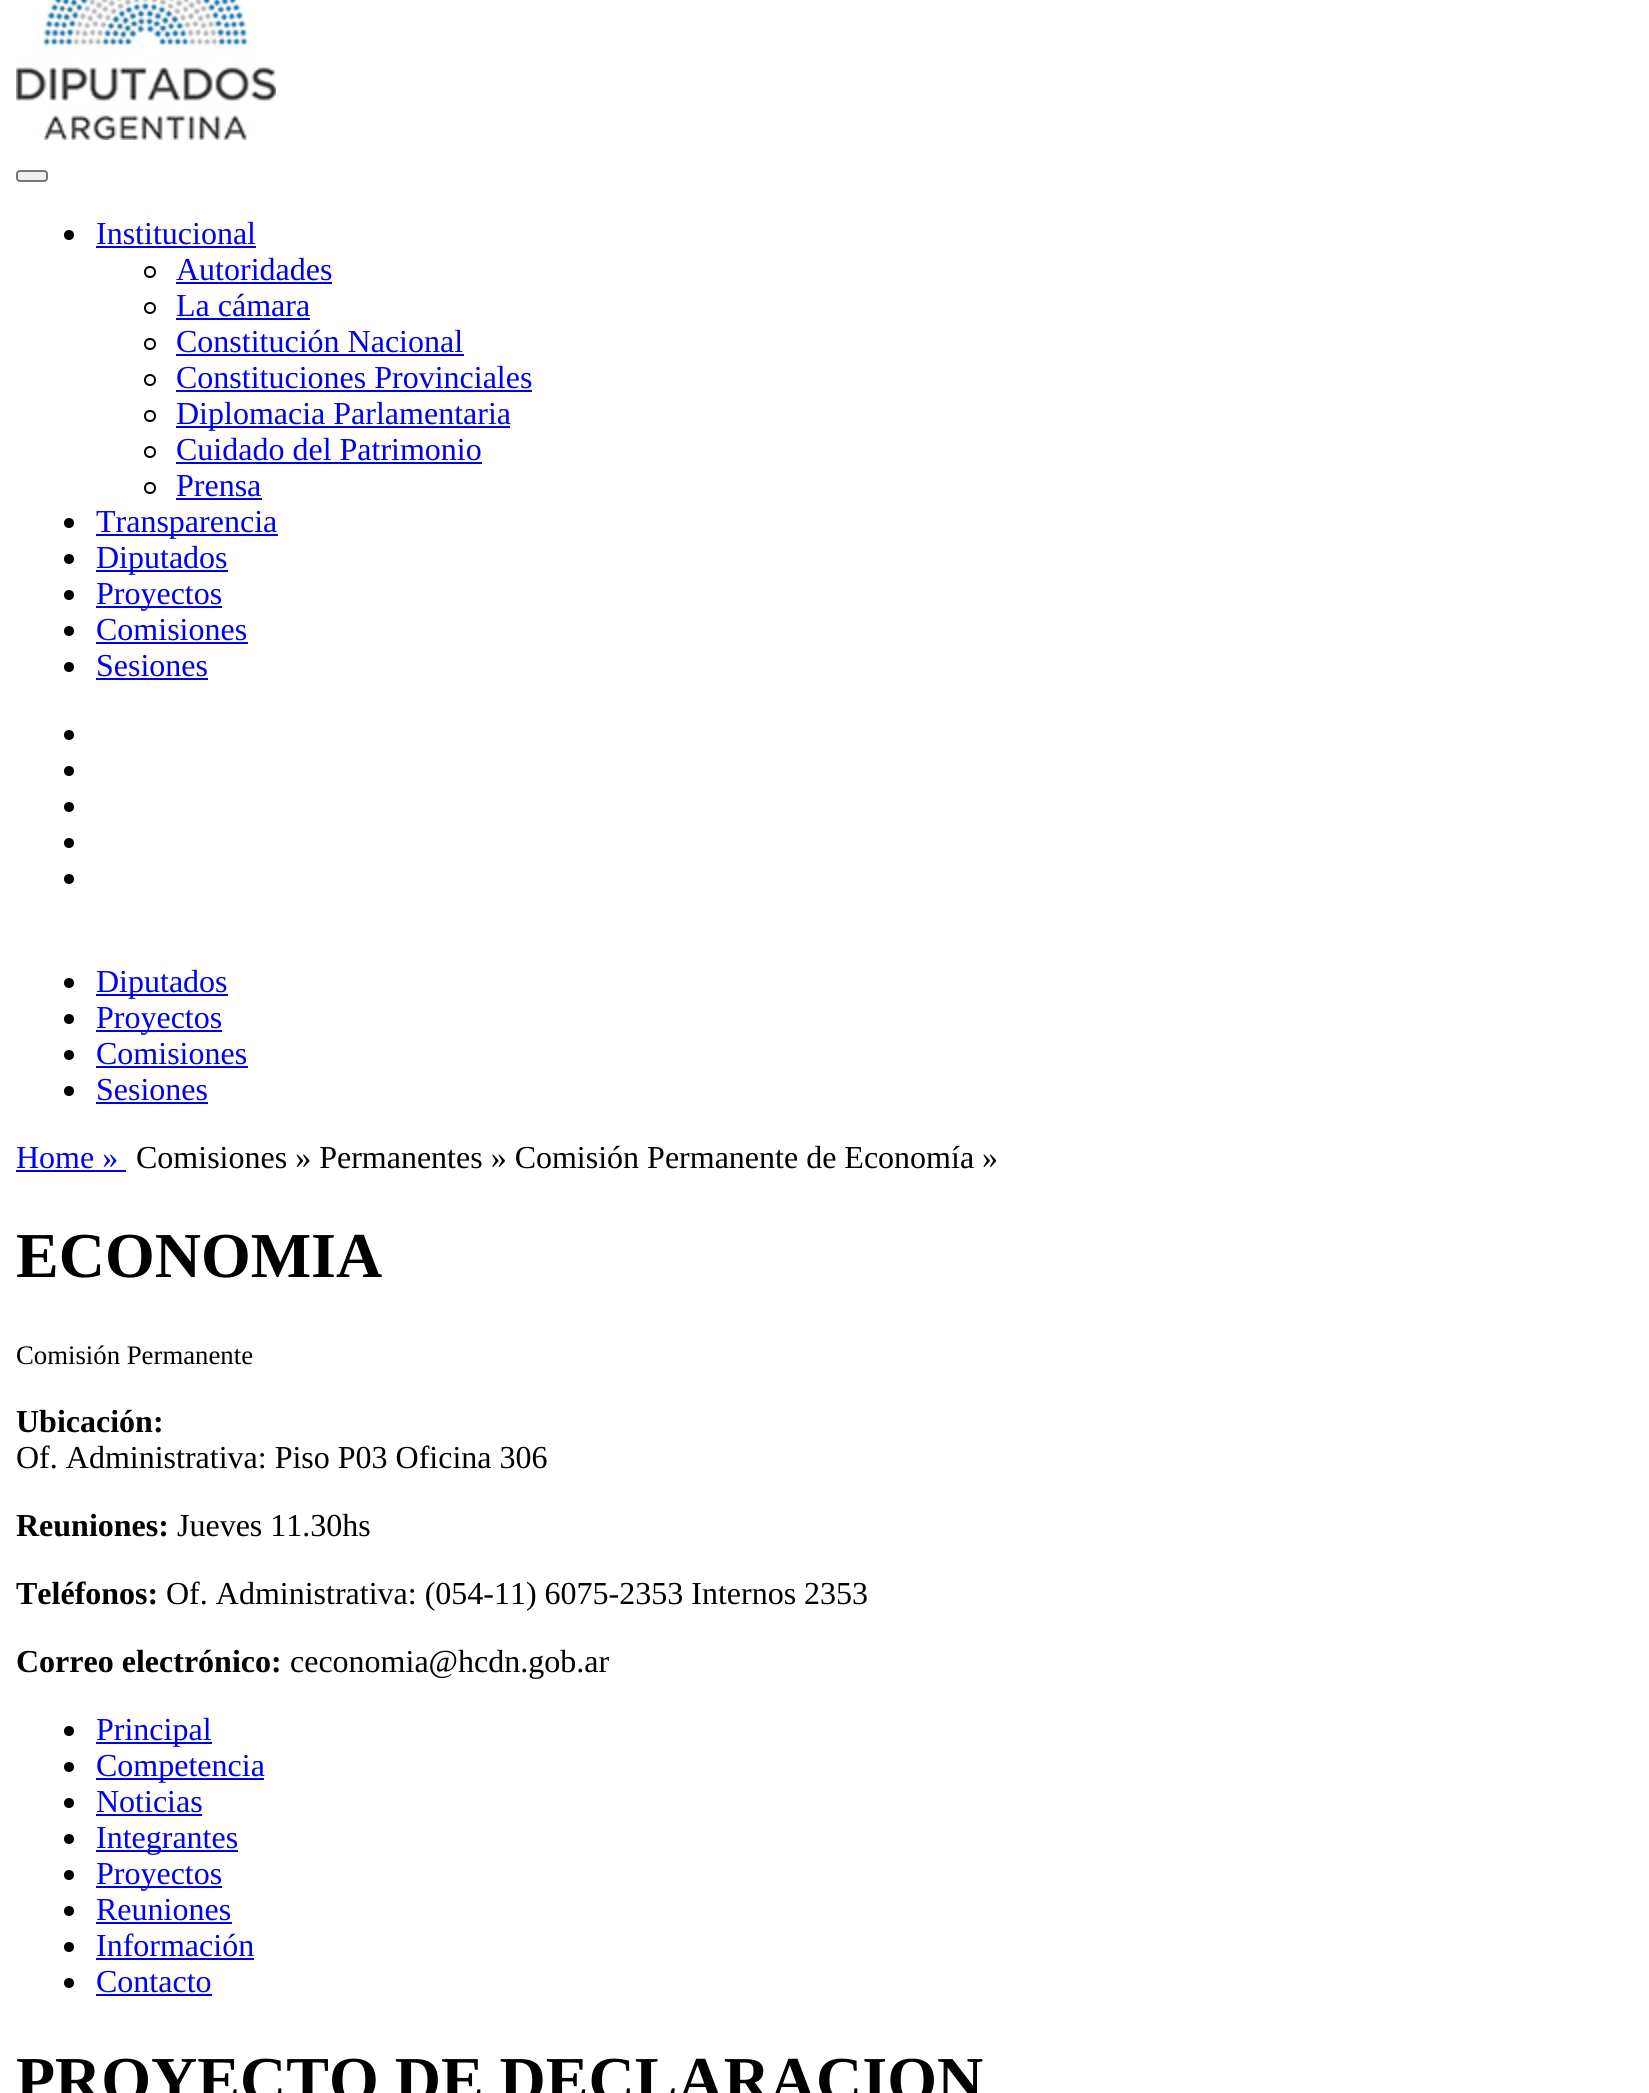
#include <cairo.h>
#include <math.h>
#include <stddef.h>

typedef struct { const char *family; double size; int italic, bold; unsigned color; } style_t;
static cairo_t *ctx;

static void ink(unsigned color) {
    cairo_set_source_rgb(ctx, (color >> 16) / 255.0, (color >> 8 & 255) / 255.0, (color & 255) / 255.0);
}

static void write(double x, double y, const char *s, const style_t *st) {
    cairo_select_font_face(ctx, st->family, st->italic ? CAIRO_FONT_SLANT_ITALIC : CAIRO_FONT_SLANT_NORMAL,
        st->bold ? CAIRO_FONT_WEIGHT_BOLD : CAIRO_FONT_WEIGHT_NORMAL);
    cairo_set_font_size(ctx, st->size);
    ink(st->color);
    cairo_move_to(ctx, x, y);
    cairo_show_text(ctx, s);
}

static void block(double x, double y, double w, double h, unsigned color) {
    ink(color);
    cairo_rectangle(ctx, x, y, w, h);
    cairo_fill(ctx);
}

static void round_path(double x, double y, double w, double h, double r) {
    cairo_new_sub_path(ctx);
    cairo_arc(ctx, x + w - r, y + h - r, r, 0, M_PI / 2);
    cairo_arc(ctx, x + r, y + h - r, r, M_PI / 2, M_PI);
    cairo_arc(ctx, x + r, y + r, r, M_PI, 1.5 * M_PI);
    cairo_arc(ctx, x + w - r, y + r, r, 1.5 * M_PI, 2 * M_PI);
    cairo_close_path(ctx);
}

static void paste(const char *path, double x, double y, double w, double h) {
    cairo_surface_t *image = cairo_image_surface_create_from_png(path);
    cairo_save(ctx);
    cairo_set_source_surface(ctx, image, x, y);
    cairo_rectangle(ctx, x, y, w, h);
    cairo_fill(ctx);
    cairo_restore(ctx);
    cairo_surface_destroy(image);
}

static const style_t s1 = {"Liberation Serif", 32, 0, 0, 0x0000ee};
static const style_t s2 = {"Liberation Serif", 32, 0, 0, 0x000000};
static const style_t s3 = {"Liberation Serif", 64, 0, 1, 0x000000};
static const style_t s4 = {"Liberation Serif", 26.75, 0, 0, 0x000000};
static const style_t s5 = {"Liberation Serif", 32, 0, 1, 0x000000};

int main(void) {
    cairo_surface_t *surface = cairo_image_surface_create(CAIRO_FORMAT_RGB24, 1649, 2093);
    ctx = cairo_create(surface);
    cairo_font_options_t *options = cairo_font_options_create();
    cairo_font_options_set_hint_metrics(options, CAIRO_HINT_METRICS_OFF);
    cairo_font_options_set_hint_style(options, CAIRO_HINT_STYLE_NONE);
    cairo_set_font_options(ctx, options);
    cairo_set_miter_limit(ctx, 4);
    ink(0xffffff);
    cairo_paint(ctx);
    paste("pic1.png", 16, 0, 260, 140);
    ink(0xefefef);
    round_path(17, 171, 30, 10, 3);
    cairo_fill_preserve(ctx);
    ink(0x767676);
    cairo_stroke(ctx);
    ink(0x000000);
    cairo_arc(ctx, 69, 235, 5, 0, 2 * M_PI);
    cairo_fill(ctx);
    write(96, 244, "Institucional", &s1);
    block(96, 246, 160, 2, 0x0000ee);
    cairo_new_path(ctx);
    cairo_arc(ctx, 150, 272, 5, 0, 2 * M_PI);
    ink(0x000000);
    cairo_stroke(ctx);
    write(176, 280, "Autoridades", &s1);
    block(176, 282, 156, 2, 0x0000ee);
    cairo_new_path(ctx);
    cairo_arc(ctx, 150, 308, 5, 0, 2 * M_PI);
    ink(0x000000);
    cairo_stroke(ctx);
    write(176, 316, "La cámara", &s1);
    block(176, 318, 134, 2, 0x0000ee);
    cairo_new_path(ctx);
    cairo_arc(ctx, 150, 344, 5, 0, 2 * M_PI);
    ink(0x000000);
    cairo_stroke(ctx);
    write(176, 352, "Constitución Nacional", &s1);
    block(176, 354, 288, 2, 0x0000ee);
    cairo_new_path(ctx);
    cairo_arc(ctx, 150, 380, 5, 0, 2 * M_PI);
    ink(0x000000);
    cairo_stroke(ctx);
    write(176, 388, "Constituciones Provinciales", &s1);
    block(176, 390, 356, 2, 0x0000ee);
    cairo_new_path(ctx);
    cairo_arc(ctx, 150, 416, 5, 0, 2 * M_PI);
    ink(0x000000);
    cairo_stroke(ctx);
    block(176, 426, 334, 2, 0x0000ee);
    write(176, 424, "Diplomacia Parlamentaria", &s1);
    cairo_new_path(ctx);
    cairo_arc(ctx, 150, 452, 5, 0, 2 * M_PI);
    ink(0x000000);
    cairo_stroke(ctx);
    write(176, 460, "Cuidado del Patrimonio", &s1);
    block(176, 462, 306, 2, 0x0000ee);
    cairo_new_path(ctx);
    cairo_arc(ctx, 150, 488, 5, 0, 2 * M_PI);
    ink(0x000000);
    cairo_stroke(ctx);
    write(176, 496, "Prensa", &s1);
    block(176, 498, 86, 2, 0x0000ee);
    ink(0x000000);
    cairo_new_path(ctx);
    cairo_arc(ctx, 69, 523, 5, 0, 2 * M_PI);
    cairo_fill(ctx);
    block(96, 534, 182, 2, 0x0000ee);
    write(96, 532, "Transparencia", &s1);
    ink(0x000000);
    cairo_new_path(ctx);
    cairo_arc(ctx, 69, 559, 5, 0, 2 * M_PI);
    cairo_fill(ctx);
    block(96, 570, 132, 2, 0x0000ee);
    write(96, 568, "Diputados", &s1);
    ink(0x000000);
    cairo_new_path(ctx);
    cairo_arc(ctx, 69, 595, 5, 0, 2 * M_PI);
    cairo_fill(ctx);
    block(96, 606, 126, 2, 0x0000ee);
    write(96, 604, "Proyectos", &s1);
    ink(0x000000);
    cairo_new_path(ctx);
    cairo_arc(ctx, 69, 631, 5, 0, 2 * M_PI);
    cairo_fill(ctx);
    write(96, 640, "Comisiones", &s1);
    block(96, 642, 152, 2, 0x0000ee);
    ink(0x000000);
    cairo_new_path(ctx);
    cairo_arc(ctx, 69, 667, 5, 0, 2 * M_PI);
    cairo_fill(ctx);
    write(96, 676, "Sesiones", &s1);
    block(96, 678, 112, 2, 0x0000ee);
    ink(0x000000);
    cairo_new_path(ctx);
    cairo_arc(ctx, 69, 735, 5, 0, 2 * M_PI);
    cairo_fill(ctx);
    cairo_arc(ctx, 69, 771, 5, 0, 2 * M_PI);
    cairo_fill(ctx);
    cairo_arc(ctx, 69, 807, 5, 0, 2 * M_PI);
    cairo_fill(ctx);
    cairo_arc(ctx, 69, 843, 5, 0, 2 * M_PI);
    cairo_fill(ctx);
    cairo_arc(ctx, 69, 879, 5, 0, 2 * M_PI);
    cairo_fill(ctx);
    cairo_arc(ctx, 69, 983, 5, 0, 2 * M_PI);
    cairo_fill(ctx);
    block(96, 994, 132, 2, 0x0000ee);
    write(96, 992, "Diputados", &s1);
    ink(0x000000);
    cairo_new_path(ctx);
    cairo_arc(ctx, 69, 1019, 5, 0, 2 * M_PI);
    cairo_fill(ctx);
    block(96, 1030, 126, 2, 0x0000ee);
    write(96, 1028, "Proyectos", &s1);
    ink(0x000000);
    cairo_new_path(ctx);
    cairo_arc(ctx, 69, 1055, 5, 0, 2 * M_PI);
    cairo_fill(ctx);
    write(96, 1064, "Comisiones", &s1);
    block(96, 1066, 152, 2, 0x0000ee);
    ink(0x000000);
    cairo_new_path(ctx);
    cairo_arc(ctx, 69, 1091, 5, 0, 2 * M_PI);
    cairo_fill(ctx);
    write(96, 1100, "Sesiones", &s1);
    block(96, 1102, 112, 2, 0x0000ee);
    write(16, 1168, "Home »", &s1);
    block(16, 1170, 110, 2, 0x0000ee);
    write(136, 1168, "Comisiones » Permanentes » Comisión Permanente de Economía »", &s2);
    write(16, 1277, "ECONOMIA", &s3);
    write(16, 1364, "Comisión Permanente", &s4);
    write(16, 1432, "Ubicación:", &s5);
    write(16, 1468, "Of. Administrativa: Piso P03 Oficina 306", &s2);
    write(16, 1536, "Reuniones:", &s5);
    write(177, 1536, "Jueves 11.30hs", &s2);
    write(16, 1604, "Teléfonos:", &s5);
    write(166, 1604, "Of. Administrativa: (054-11) 6075-2353 Internos 2353", &s2);
    write(16, 1672, "Correo electrónico:", &s5);
    write(290, 1672, "ceconomia@hcdn.gob.ar", &s2);
    cairo_new_path(ctx);
    cairo_arc(ctx, 69, 1731, 5, 0, 2 * M_PI);
    cairo_fill(ctx);
    block(96, 1742, 116, 2, 0x0000ee);
    write(96, 1740, "Principal", &s1);
    ink(0x000000);
    cairo_new_path(ctx);
    cairo_arc(ctx, 69, 1767, 5, 0, 2 * M_PI);
    cairo_fill(ctx);
    block(96, 1778, 168, 2, 0x0000ee);
    write(96, 1776, "Competencia", &s1);
    ink(0x000000);
    cairo_new_path(ctx);
    cairo_arc(ctx, 69, 1803, 5, 0, 2 * M_PI);
    cairo_fill(ctx);
    write(96, 1812, "Noticias", &s1);
    block(96, 1814, 106, 2, 0x0000ee);
    ink(0x000000);
    cairo_new_path(ctx);
    cairo_arc(ctx, 69, 1839, 5, 0, 2 * M_PI);
    cairo_fill(ctx);
    block(96, 1850, 142, 2, 0x0000ee);
    write(96, 1848, "Integrantes", &s1);
    ink(0x000000);
    cairo_new_path(ctx);
    cairo_arc(ctx, 69, 1875, 5, 0, 2 * M_PI);
    cairo_fill(ctx);
    block(96, 1886, 126, 2, 0x0000ee);
    write(96, 1884, "Proyectos", &s1);
    ink(0x000000);
    cairo_new_path(ctx);
    cairo_arc(ctx, 69, 1911, 5, 0, 2 * M_PI);
    cairo_fill(ctx);
    write(96, 1920, "Reuniones", &s1);
    block(96, 1922, 136, 2, 0x0000ee);
    ink(0x000000);
    cairo_new_path(ctx);
    cairo_arc(ctx, 69, 1947, 5, 0, 2 * M_PI);
    cairo_fill(ctx);
    write(96, 1956, "Información", &s1);
    block(96, 1958, 158, 2, 0x0000ee);
    ink(0x000000);
    cairo_new_path(ctx);
    cairo_arc(ctx, 69, 1983, 5, 0, 2 * M_PI);
    cairo_fill(ctx);
    write(96, 1992, "Contacto", &s1);
    block(96, 1994, 116, 2, 0x0000ee);
    write(16, 2101, "PROYECTO DE DECLARACION", &s3);
    cairo_surface_write_to_png(surface, "screenshot.png");
    cairo_font_options_destroy(options);
    cairo_destroy(ctx);
    cairo_surface_destroy(surface);
    return 0;
}
